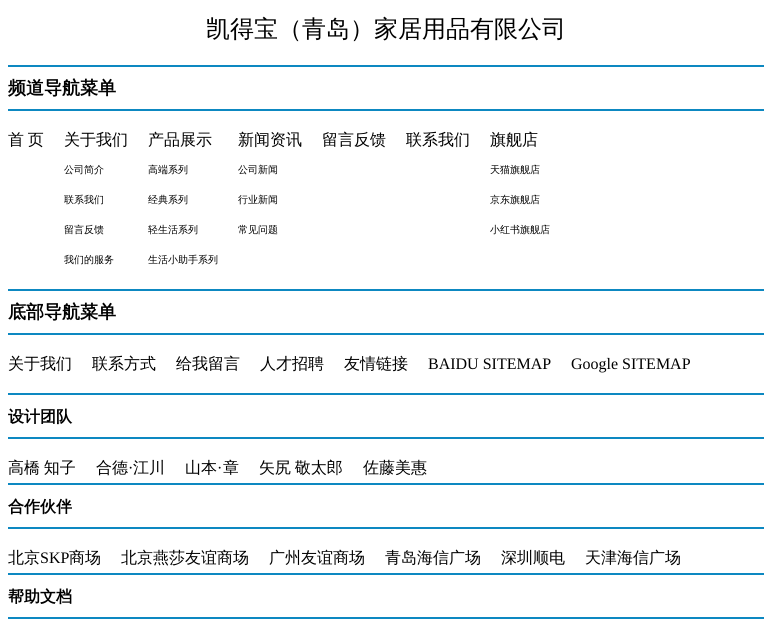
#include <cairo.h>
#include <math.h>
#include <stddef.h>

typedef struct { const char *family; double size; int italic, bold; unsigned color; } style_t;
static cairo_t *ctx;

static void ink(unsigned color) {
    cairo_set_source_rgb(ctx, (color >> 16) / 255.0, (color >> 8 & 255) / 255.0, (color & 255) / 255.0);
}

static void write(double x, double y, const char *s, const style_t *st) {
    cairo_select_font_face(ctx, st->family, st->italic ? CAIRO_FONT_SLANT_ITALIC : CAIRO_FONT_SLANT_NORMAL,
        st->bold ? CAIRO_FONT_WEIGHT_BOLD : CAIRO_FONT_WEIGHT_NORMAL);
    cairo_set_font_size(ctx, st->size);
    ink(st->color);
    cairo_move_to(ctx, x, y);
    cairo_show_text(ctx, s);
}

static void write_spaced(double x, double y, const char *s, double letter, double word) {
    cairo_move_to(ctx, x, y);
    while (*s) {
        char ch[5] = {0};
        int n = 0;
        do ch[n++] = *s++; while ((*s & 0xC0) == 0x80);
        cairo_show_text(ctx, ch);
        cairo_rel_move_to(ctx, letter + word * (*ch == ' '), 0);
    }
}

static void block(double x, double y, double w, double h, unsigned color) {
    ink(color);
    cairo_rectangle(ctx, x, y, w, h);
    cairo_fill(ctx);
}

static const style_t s1 = {"WenQuanYi Zen Hei Medium", 24, 0, 0, 0x000000};
static const style_t s2 = {"WenQuanYi Zen Hei", 18, 0, 1, 0x000000};
static const style_t s3 = {"WenQuanYi Zen Hei Medium", 16, 0, 0, 0x000000};
static const style_t s4 = {"WenQuanYi Zen Hei Medium", 10, 0, 0, 0x000000};
static const style_t s5 = {"Liberation Serif", 16, 0, 0, 0x000000};
static const style_t s6 = {"WenQuanYi Zen Hei", 16, 0, 1, 0x000000};

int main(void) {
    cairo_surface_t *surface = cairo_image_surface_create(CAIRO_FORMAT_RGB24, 772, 644);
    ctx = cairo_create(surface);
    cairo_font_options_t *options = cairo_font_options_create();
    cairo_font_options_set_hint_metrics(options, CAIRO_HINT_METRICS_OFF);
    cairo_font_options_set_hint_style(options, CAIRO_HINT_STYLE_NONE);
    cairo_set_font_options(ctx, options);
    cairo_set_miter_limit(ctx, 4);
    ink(0xffffff);
    cairo_paint(ctx);
    write(206, 37, "凯得宝（青岛）家居用品有限公司", &s1);
    block(8, 65, 756, 2, 0x0d88c1);
    block(8, 109, 756, 2, 0x0d88c1);
    write(8, 94, "频道导航菜单", &s2);
    cairo_select_font_face(ctx, "WenQuanYi Zen Hei Medium", CAIRO_FONT_SLANT_NORMAL, CAIRO_FONT_WEIGHT_NORMAL);
    cairo_set_font_size(ctx, 16);
    write_spaced(8, 145, "首 页", 0, -1);
    write(64, 145, "关于我们", &s3);
    write(64, 173, "公司简介", &s4);
    write(64, 203, "联系我们", &s4);
    write(64, 233, "留言反馈", &s4);
    write(64, 263, "我们的服务", &s4);
    write(148, 145, "产品展示", &s3);
    write(148, 173, "高端系列", &s4);
    write(148, 203, "经典系列", &s4);
    write(148, 233, "轻生活系列", &s4);
    write(148, 263, "生活小助手系列", &s4);
    write(238, 145, "新闻资讯", &s3);
    write(238, 173, "公司新闻", &s4);
    write(238, 203, "行业新闻", &s4);
    write(238, 233, "常见问题", &s4);
    write(322, 145, "留言反馈", &s3);
    write(406, 145, "联系我们", &s3);
    write(490, 145, "旗舰店", &s3);
    write(490, 173, "天猫旗舰店", &s4);
    write(490, 203, "京东旗舰店", &s4);
    write(490, 233, "小红书旗舰店", &s4);
    block(8, 289, 756, 2, 0x0d88c1);
    block(8, 333, 756, 2, 0x0d88c1);
    write(8, 318, "底部导航菜单", &s2);
    write(8, 369, "关于我们", &s3);
    write(92, 369, "联系方式", &s3);
    write(176, 369, "给我留言", &s3);
    write(260, 369, "人才招聘", &s3);
    write(344, 369, "友情链接", &s3);
    write(428, 369, "BAIDU SITEMAP", &s5);
    write(571, 369, "Google SITEMAP", &s5);
    block(8, 393, 756, 2, 0x0d88c1);
    block(8, 437, 756, 2, 0x0d88c1);
    write(8, 422, "设计团队", &s6);
    cairo_select_font_face(ctx, "WenQuanYi Zen Hei Medium", CAIRO_FONT_SLANT_NORMAL, CAIRO_FONT_WEIGHT_NORMAL);
    write_spaced(8, 473, "高橋 知子", 0, -1);
    write(96, 473, "合德", &s3);
    write(128, 473, "·", &s5);
    write(133, 473, "江川", &s3);
    write(185, 473, "山本", &s3);
    write(217, 473, "·", &s5);
    write(223, 473, "章", &s3);
    write_spaced(259, 473, "矢尻 敬太郎", 0, -1);
    write(363, 473, "佐藤美惠", &s3);
    block(8, 483, 756, 2, 0x0d88c1);
    block(8, 527, 756, 2, 0x0d88c1);
    write(8, 512, "合作伙伴", &s6);
    write(8, 563, "北京", &s3);
    write(40, 563, "SKP", &s5);
    write(69, 563, "商场", &s3);
    write(121, 563, "北京燕莎友谊商场", &s3);
    write(269, 563, "广州友谊商场", &s3);
    write(385, 563, "青岛海信广场", &s3);
    write(501, 563, "深圳顺电", &s3);
    write(585, 563, "天津海信广场", &s3);
    block(8, 573, 756, 2, 0x0d88c1);
    block(8, 617, 756, 2, 0x0d88c1);
    write(8, 602, "帮助文档", &s6);
    cairo_surface_write_to_png(surface, "screenshot.png");
    cairo_font_options_destroy(options);
    cairo_destroy(ctx);
    cairo_surface_destroy(surface);
    return 0;
}
